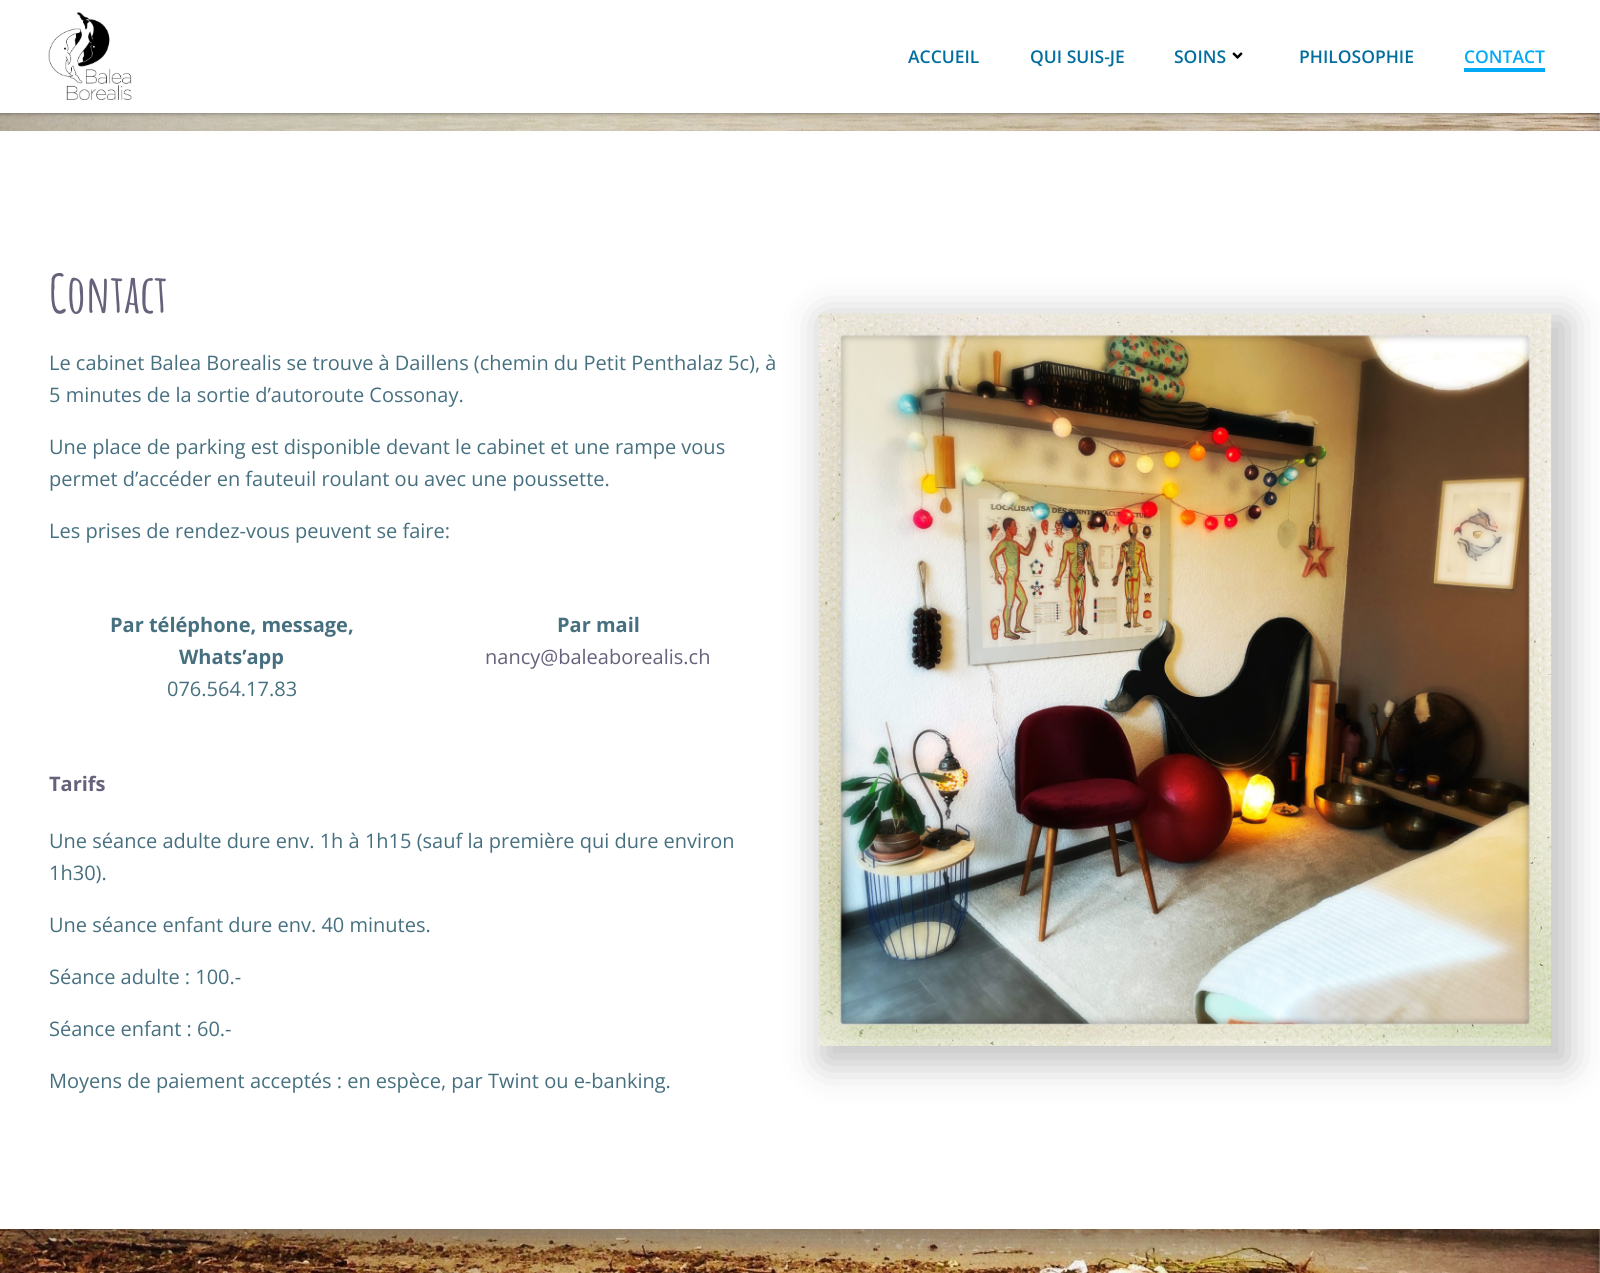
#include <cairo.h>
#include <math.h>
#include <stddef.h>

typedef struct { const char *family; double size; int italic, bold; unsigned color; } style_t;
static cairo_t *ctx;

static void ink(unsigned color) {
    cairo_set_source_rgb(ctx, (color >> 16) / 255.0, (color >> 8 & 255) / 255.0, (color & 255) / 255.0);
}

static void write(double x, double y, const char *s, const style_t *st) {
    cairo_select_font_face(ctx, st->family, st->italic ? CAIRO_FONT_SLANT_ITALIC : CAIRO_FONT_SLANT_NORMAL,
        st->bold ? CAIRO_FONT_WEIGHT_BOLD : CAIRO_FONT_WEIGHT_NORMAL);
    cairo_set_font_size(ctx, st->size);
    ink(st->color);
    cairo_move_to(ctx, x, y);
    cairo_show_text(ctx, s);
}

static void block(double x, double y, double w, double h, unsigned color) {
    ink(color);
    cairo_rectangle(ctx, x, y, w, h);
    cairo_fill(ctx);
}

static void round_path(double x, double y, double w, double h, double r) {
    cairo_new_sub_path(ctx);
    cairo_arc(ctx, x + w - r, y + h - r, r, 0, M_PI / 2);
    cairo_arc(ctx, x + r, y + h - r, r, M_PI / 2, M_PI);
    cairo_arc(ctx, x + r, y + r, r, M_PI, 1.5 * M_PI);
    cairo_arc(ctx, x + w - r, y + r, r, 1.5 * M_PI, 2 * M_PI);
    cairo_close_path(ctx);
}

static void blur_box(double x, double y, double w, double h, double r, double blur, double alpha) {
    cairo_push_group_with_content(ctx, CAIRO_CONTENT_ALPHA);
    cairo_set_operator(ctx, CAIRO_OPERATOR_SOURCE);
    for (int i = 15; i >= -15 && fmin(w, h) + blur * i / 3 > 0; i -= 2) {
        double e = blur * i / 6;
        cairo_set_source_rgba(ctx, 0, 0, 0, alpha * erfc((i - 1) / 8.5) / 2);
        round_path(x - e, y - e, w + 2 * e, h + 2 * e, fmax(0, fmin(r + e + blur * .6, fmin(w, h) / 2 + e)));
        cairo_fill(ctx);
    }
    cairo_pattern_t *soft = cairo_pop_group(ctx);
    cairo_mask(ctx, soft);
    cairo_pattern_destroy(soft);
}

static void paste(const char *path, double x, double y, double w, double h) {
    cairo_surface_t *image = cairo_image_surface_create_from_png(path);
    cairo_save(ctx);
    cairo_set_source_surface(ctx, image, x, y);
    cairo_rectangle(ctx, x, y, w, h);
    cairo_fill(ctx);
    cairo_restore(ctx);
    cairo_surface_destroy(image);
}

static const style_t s1 = {"Open Sans SemiBold", 17.5, 0, 0, 0x026e9f};
static const style_t s2 = {"Open Sans SemiBold", 17.5, 0, 0, 0x03a9f4};
static const style_t s3 = {"Amatic SC", 52.5, 0, 1, 0x65627b};
static const style_t s4 = {"Open Sans", 20, 0, 0, 0x46707f};
static const style_t s5 = {"Open Sans", 20, 0, 1, 0x46707f};
static const style_t s6 = {"Open Sans", 20, 0, 0, 0x65627b};
static const style_t s7 = {"Open Sans", 20, 0, 1, 0x65627b};

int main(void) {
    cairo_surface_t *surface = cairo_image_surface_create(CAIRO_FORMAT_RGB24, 1600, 1273);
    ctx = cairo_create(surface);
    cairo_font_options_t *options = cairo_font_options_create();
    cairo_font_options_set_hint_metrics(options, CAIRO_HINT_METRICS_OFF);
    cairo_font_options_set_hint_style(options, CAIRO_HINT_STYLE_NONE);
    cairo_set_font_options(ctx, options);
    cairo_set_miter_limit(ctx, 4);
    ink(0xffffff);
    cairo_paint(ctx);
    paste("pic5.png", 0, 1229, 1600, 44);
    ink(0x000000);
    blur_box(0, 156, 1600, 1098, 0, 19, 0.08);
    ink(0x313439);
    blur_box(13, 169, 1575, 1072, 0, 12.5, 0.3);
    paste("pic3.png", 0, 113, 1600, 18);
    ink(0x000000);
    blur_box(0, 0, 1600, 113, 0, 2.5, 0.5);
    block(0, 0, 1600, 113, 0xffffff);
    paste("pic1.png", 48, 12, 84, 88);
    write(908, 63, "ACCUEIL", &s1);
    write(1030, 63, "QUI SUIS-JE", &s1);
    write(1174, 63, "SOINS", &s1);
    paste("pic2.png", 1232, 52, 11, 7);
    write(1299, 63, "PHILOSOPHIE", &s1);
    write(1464, 63, "CONTACT", &s2);
    block(1464, 68, 81, 4, 0x03a9f4);
    block(0, 134, 1600, 1095, 0xffffff);
    write(49, 313, "Contact", &s3);
    write(49, 370, "Le cabinet Balea Borealis se trouve à Daillens (chemin du Petit Penthalaz 5c), à", &s4);
    write(49, 402, "5 minutes de la sortie d’autoroute Cossonay.", &s4);
    write(49, 454, "Une place de parking est disponible devant le cabinet et une rampe vous", &s4);
    write(49, 486, "permet d’accéder en fauteuil roulant ou avec une poussette.", &s4);
    write(49, 538, "Les prises de rendez-vous peuvent se faire:", &s4);
    write(110, 632, "Par téléphone, message,", &s5);
    write(179, 664, "Whats’app", &s5);
    write(167, 696, "076.564.17.83", &s4);
    write(557, 632, "Par mail", &s5);
    write(485, 664, "nancy@baleaborealis.ch", &s6);
    write(49, 791, "Tarifs", &s7);
    write(49, 848, "Une séance adulte dure env. 1h à 1h15 (sauf la première qui dure environ", &s4);
    write(49, 880, "1h30).", &s4);
    write(49, 932, "Une séance enfant dure env. 40 minutes.", &s4);
    write(49, 984, "Séance adulte : 100.-", &s4);
    write(49, 1036, "Séance enfant : 60.-", &s4);
    write(49, 1088, "Moyens de paiement acceptés : en espèce, par Twint ou e-banking.", &s4);
    ink(0x000000);
    blur_box(823, 318, 745, 745, 0, 19.5, 0.25);
    paste("pic4.png", 818, 313, 734, 733);
    cairo_surface_write_to_png(surface, "screenshot.png");
    cairo_font_options_destroy(options);
    cairo_destroy(ctx);
    cairo_surface_destroy(surface);
    return 0;
}
